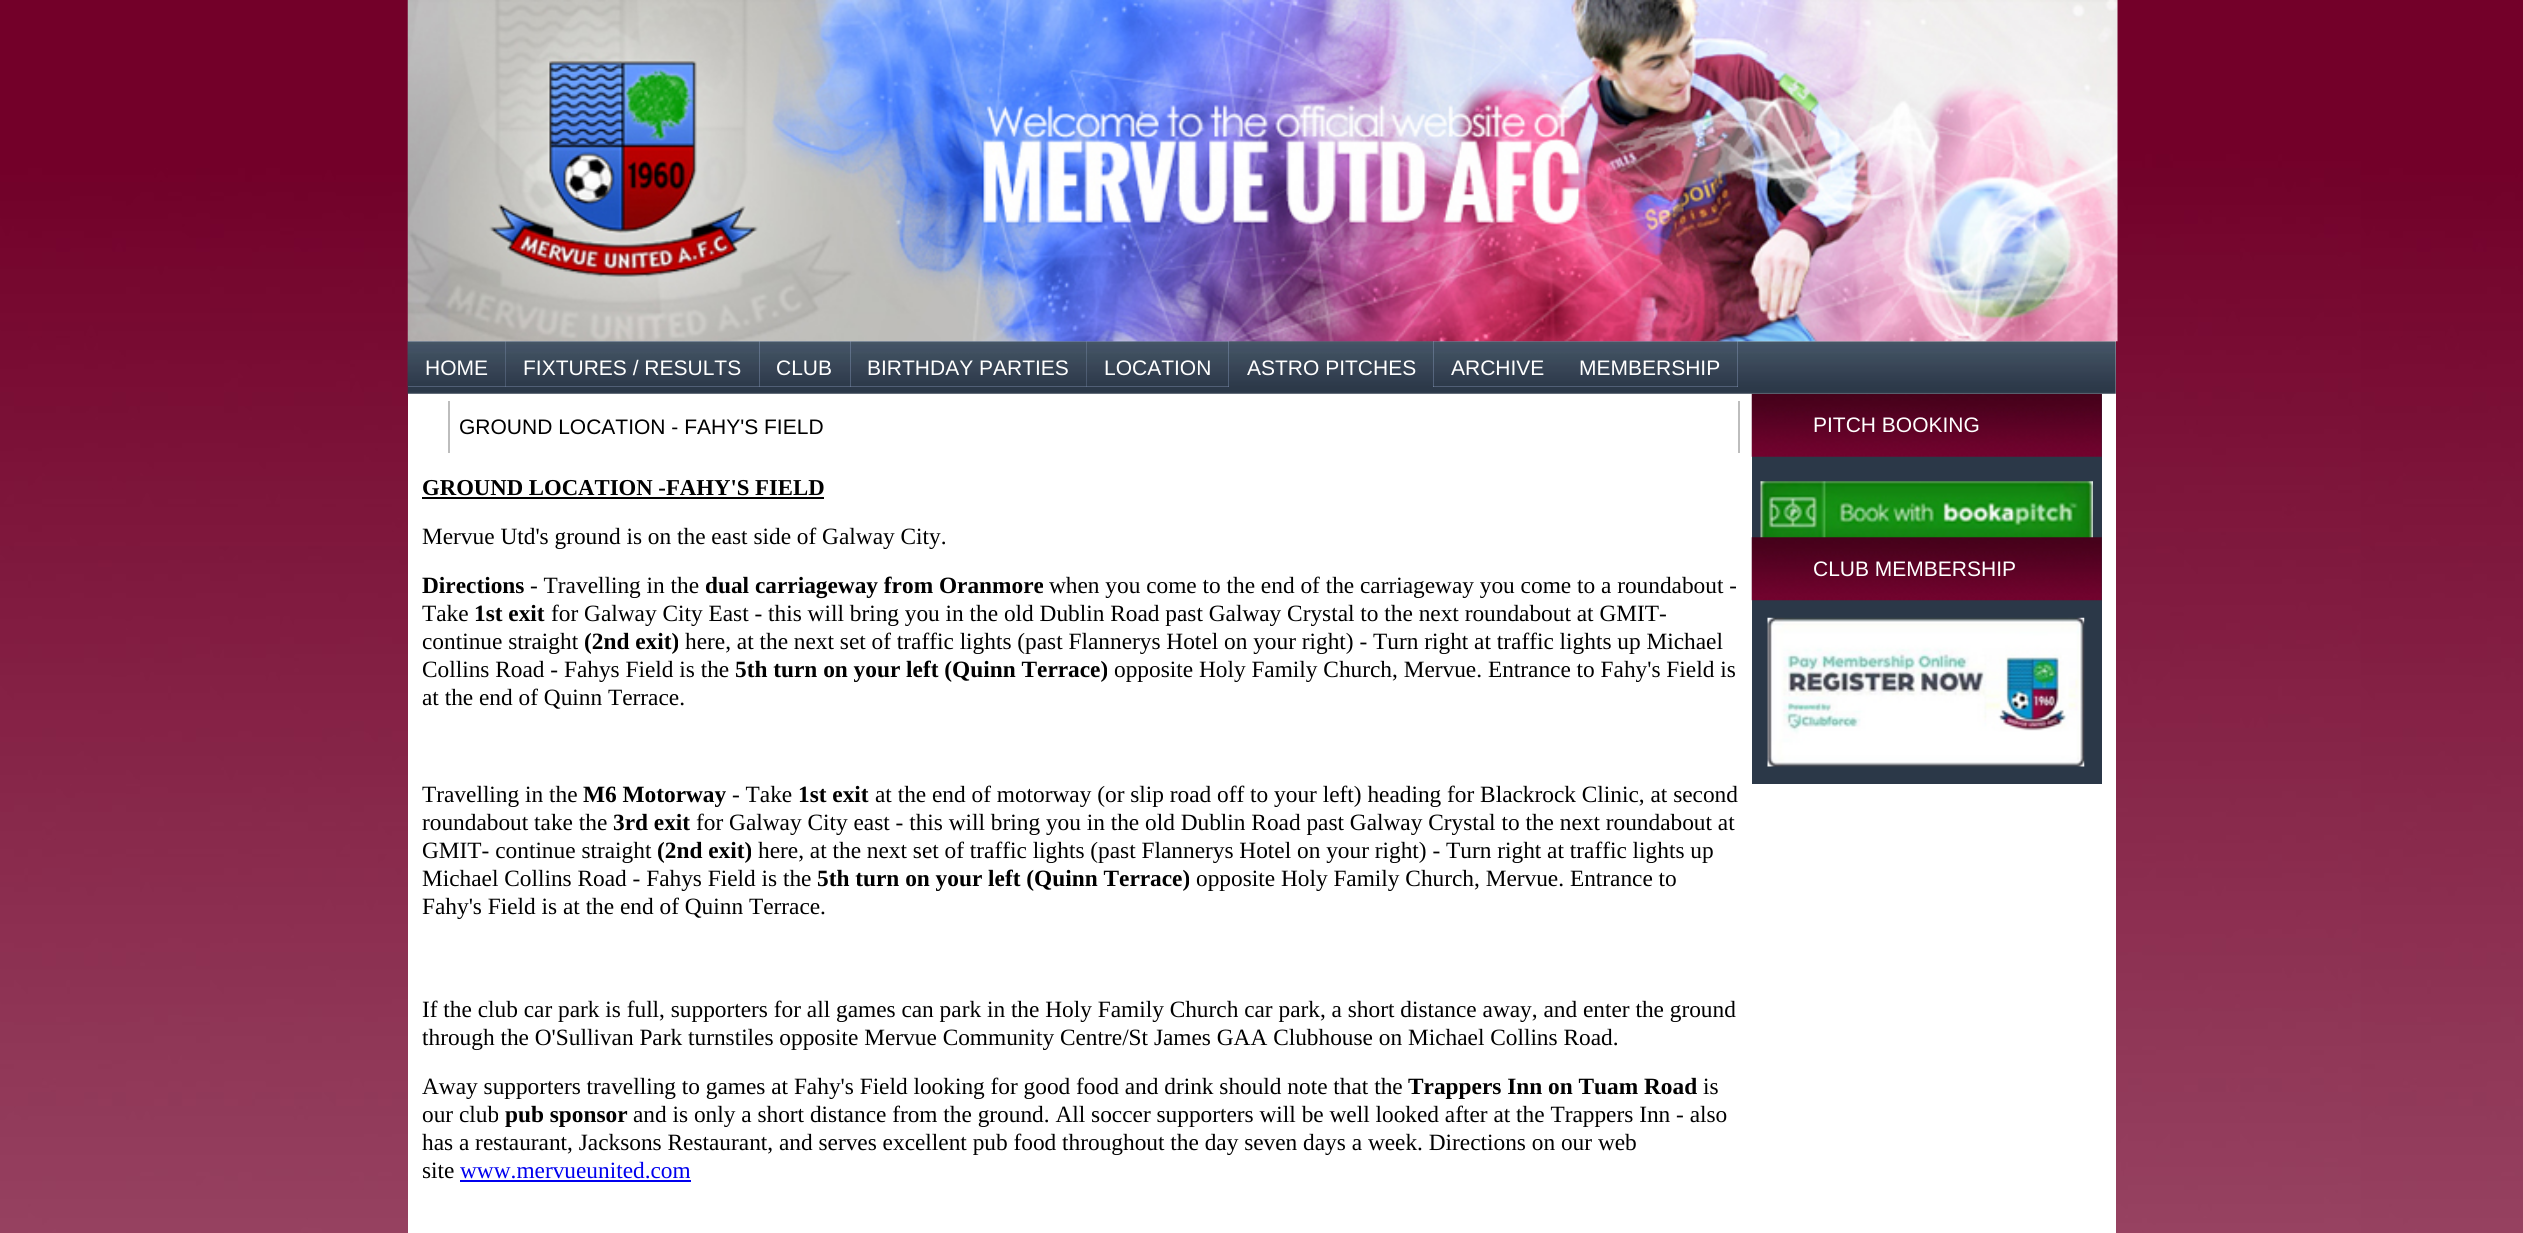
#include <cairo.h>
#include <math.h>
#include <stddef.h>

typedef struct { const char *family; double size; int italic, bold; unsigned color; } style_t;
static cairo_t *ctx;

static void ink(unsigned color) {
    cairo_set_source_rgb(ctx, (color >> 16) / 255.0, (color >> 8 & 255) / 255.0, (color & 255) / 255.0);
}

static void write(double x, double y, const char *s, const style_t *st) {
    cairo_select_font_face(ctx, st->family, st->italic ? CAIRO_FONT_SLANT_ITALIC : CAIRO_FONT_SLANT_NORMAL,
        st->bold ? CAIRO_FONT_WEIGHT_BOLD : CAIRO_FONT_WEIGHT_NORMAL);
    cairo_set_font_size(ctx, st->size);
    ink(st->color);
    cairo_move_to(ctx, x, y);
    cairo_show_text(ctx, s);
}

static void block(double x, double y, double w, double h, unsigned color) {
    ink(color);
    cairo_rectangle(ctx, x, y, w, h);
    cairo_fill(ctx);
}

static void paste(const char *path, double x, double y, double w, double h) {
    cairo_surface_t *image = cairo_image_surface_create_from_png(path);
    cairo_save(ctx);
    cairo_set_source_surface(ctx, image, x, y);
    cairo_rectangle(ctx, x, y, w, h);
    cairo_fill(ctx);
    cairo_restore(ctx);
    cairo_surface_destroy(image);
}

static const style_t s1 = {"Liberation Sans", 21, 0, 0, 0xffffff};
static const style_t s2 = {"Liberation Sans", 21, 0, 0, 0x000000};
static const style_t s3 = {"Liberation Serif", 22.75, 0, 1, 0x000000};
static const style_t s4 = {"Liberation Serif", 23.33, 0, 0, 0x000000};
static const style_t s5 = {"Liberation Serif", 23.33, 0, 1, 0x000000};
static const style_t s6 = {"Liberation Serif", 23.33, 0, 0, 0x0000ee};

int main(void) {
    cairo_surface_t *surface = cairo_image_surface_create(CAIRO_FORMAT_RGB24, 2523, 1233);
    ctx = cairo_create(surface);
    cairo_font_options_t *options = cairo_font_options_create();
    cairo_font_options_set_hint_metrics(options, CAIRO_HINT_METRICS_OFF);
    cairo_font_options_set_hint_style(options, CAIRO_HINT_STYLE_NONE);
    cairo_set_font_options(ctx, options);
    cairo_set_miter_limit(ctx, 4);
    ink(0xffffff);
    cairo_paint(ctx);
    paste("pic1.png", 0, 0, 2523, 1233);
    block(408, 341, 1708, 892, 0xffffff);
    block(1752, 394, 350, 390, 0x2b3848);
    paste("pic12.png", 1751, 393, 351, 64);
    paste("pic3.png", 407, 341, 1709, 53);
    block(408, 341, 821, 46, 0xbdd2ff);
    paste("pic4.png", 407, 341, 99, 46);
    paste("pic5.png", 505, 341, 255, 46);
    paste("pic6.png", 759, 341, 92, 46);
    paste("pic7.png", 850, 341, 237, 46);
    paste("pic8.png", 1086, 341, 143, 46);
    paste("pic9.png", 1228, 341, 205, 46);
    block(1433, 341, 305, 46, 0xbdd2ff);
    paste("pic10.png", 1433, 341, 128, 46);
    paste("pic11.png", 1561, 341, 177, 46);
    paste("pic2.png", 407, 0, 1711, 342);
    write(425, 375, "HOME", &s1);
    write(523, 375, "FIXTURES / RESULTS", &s1);
    write(776, 375, "CLUB", &s1);
    write(867, 375, "BIRTHDAY PARTIES", &s1);
    write(1104, 375, "LOCATION", &s1);
    write(1247, 375, "ASTRO PITCHES", &s1);
    write(1451, 375, "ARCHIVE", &s1);
    write(1579, 375, "MEMBERSHIP", &s1);
    block(1738, 401, 2, 52, 0xbdbdbd);
    block(448, 401, 2, 52, 0xbdbdbd);
    write(459, 434, "GROUND LOCATION - FAHY'S FIELD", &s2);
    write(422, 495, "GROUND LOCATION -FAHY'S FIELD", &s3);
    block(422, 497, 402, 2, 0x000000);
    write(422, 544, "Mervue Utd's ground is on the east side of Galway City.", &s4);
    write(422, 593, "Directions", &s5);
    write(530, 593, "- Travelling in the", &s4);
    write(705, 593, "dual carriageway from Oranmore", &s5);
    write(1049, 593, "when you come to the end of the carriageway you come to a roundabout -", &s4);
    write(422, 621, "Take", &s4);
    write(474, 621, "1st exit", &s5);
    write(551, 621, "for Galway City East - this will bring you in the old Dublin Road past Galway Crystal to the next roundabout at GMIT-", &s4);
    write(422, 649, "continue straight", &s4);
    write(584, 649, "(2nd exit)", &s5);
    write(685, 649, "here, at the next set of traffic lights (past Flannerys Hotel on your right) - Turn right at traffic lights up Michael", &s4);
    write(422, 677, "Collins Road - Fahys Field is the", &s4);
    write(735, 677, "5th turn on your left (Quinn Terrace)", &s5);
    write(1114, 677, "opposite Holy Family Church, Mervue. Entrance to Fahy's Field is", &s4);
    write(422, 705, "at the end of Quinn Terrace.", &s4);
    write(422, 802, "Travelling in the", &s4);
    write(583, 802, "M6 Motorway", &s5);
    write(732, 802, "- Take", &s4);
    write(798, 802, "1st exit", &s5);
    write(875, 802, "at the end of motorway (or slip road off to your left) heading for Blackrock Clinic, at second", &s4);
    write(422, 830, "roundabout take the", &s4);
    write(613, 830, "3rd exit", &s5);
    write(696, 830, "for Galway City east - this will bring you in the old Dublin Road past Galway Crystal to the next roundabout at", &s4);
    write(422, 858, "GMIT- continue straight", &s4);
    write(657, 858, "(2nd exit)", &s5);
    write(758, 858, "here, at the next set of traffic lights (past Flannerys Hotel on your right) - Turn right at traffic lights up", &s4);
    write(422, 886, "Michael Collins Road - Fahys Field is the", &s4);
    write(817, 886, "5th turn on your left (Quinn Terrace)", &s5);
    write(1196, 886, "opposite Holy Family Church, Mervue. Entrance to", &s4);
    write(422, 914, "Fahy's Field is at the end of Quinn Terrace.", &s4);
    write(422, 1017, "If the club car park is full, supporters for all games can park in the Holy Family Church car park, a short distance away, and enter the ground", &s4);
    write(422, 1045, "through the O'Sullivan Park turnstiles opposite Mervue Community Centre/St James GAA Clubhouse on Michael Collins Road.", &s4);
    write(422, 1094, "Away supporters travelling to games at Fahy's Field looking for good food and drink should note that the", &s4);
    write(1408, 1094, "Trappers Inn on Tuam Road", &s5);
    write(1703, 1094, "is", &s4);
    write(422, 1122, "our club", &s4);
    write(505, 1122, "pub sponsor", &s5);
    write(633, 1122, "and is only a short distance from the ground. All soccer supporters will be well looked after at the Trappers Inn - also", &s4);
    write(422, 1150, "has a restaurant, Jacksons Restaurant, and serves excellent pub food throughout the day seven days a week. Directions on our web", &s4);
    write(422, 1178, "site", &s4);
    write(460, 1178, "www.mervueunited.com", &s6);
    block(460, 1180, 231, 2, 0x0000ee);
    write(1813, 432, "PITCH BOOKING", &s1);
    paste("pic13.png", 1760, 481, 333, 57);
    paste("pic14.png", 1751, 537, 351, 64);
    write(1813, 576, "CLUB MEMBERSHIP", &s1);
    paste("pic15.png", 1767, 617, 318, 150);
    cairo_surface_write_to_png(surface, "screenshot.png");
    cairo_font_options_destroy(options);
    cairo_destroy(ctx);
    cairo_surface_destroy(surface);
    return 0;
}
